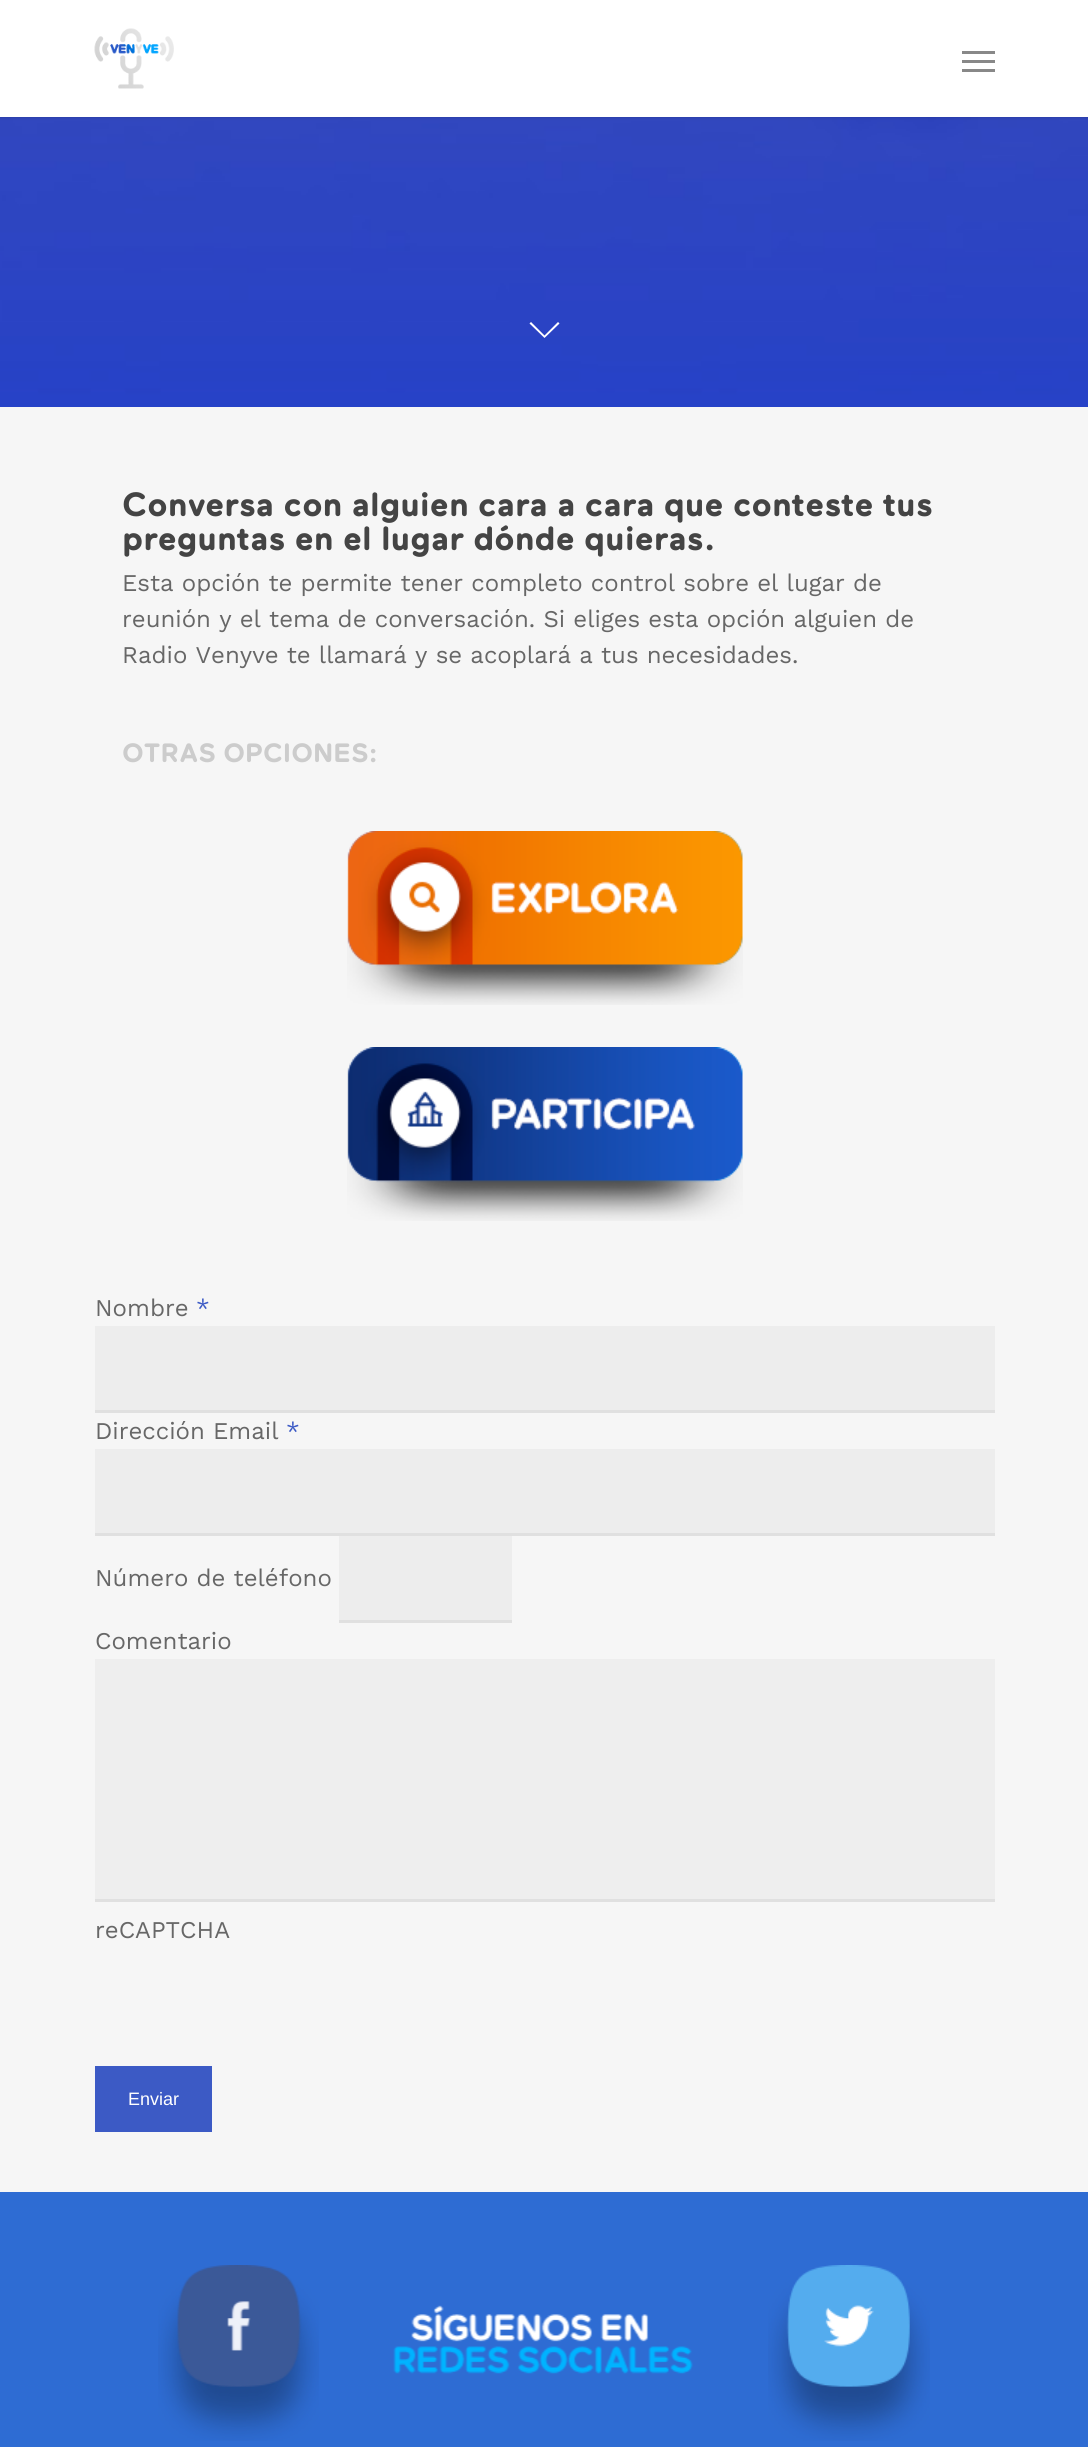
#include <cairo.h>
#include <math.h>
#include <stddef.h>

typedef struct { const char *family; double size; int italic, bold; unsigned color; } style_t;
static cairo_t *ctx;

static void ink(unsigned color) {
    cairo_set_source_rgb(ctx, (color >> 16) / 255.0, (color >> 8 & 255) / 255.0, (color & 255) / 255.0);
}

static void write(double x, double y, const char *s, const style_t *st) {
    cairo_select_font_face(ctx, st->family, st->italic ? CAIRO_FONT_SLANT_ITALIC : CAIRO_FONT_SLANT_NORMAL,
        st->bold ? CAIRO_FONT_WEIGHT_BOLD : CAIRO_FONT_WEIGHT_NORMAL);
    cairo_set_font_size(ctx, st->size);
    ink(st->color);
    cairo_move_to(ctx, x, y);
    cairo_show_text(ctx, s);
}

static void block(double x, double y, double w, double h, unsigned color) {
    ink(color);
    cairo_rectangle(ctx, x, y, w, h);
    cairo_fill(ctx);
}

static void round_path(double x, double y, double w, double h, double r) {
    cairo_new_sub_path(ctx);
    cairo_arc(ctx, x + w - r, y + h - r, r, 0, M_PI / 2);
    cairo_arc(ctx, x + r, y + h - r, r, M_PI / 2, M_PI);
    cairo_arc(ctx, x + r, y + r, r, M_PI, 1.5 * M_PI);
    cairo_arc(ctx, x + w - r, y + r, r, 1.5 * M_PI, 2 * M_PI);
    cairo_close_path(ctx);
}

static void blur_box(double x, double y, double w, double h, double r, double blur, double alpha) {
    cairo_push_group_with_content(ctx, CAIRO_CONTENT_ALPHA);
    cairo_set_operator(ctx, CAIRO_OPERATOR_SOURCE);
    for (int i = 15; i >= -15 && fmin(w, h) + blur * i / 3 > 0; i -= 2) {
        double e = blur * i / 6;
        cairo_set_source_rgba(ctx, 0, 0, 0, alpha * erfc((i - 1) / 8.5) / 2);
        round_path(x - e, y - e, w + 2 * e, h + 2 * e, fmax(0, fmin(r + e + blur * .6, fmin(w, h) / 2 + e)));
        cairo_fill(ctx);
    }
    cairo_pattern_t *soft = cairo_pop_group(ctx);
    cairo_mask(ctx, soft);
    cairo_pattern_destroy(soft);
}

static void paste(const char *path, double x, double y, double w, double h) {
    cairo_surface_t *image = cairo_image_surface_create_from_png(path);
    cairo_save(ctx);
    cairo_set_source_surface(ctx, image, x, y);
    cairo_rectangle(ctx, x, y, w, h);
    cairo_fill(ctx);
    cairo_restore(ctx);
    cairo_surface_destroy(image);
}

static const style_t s1 = {"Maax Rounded", 33.6, 0, 1, 0x444444};
static const style_t s2 = {"Work Sans", 24, 0, 0, 0x676767};
static const style_t s3 = {"Maax Rounded", 26.5, 0, 1, 0xcccccc};
static const style_t s4 = {"Work Sans", 24, 0, 0, 0x3c5ac5};
static const style_t s5 = {"Liberation Sans", 18, 0, 0, 0xffffff};

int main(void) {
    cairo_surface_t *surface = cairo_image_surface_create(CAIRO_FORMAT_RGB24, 1088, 2447);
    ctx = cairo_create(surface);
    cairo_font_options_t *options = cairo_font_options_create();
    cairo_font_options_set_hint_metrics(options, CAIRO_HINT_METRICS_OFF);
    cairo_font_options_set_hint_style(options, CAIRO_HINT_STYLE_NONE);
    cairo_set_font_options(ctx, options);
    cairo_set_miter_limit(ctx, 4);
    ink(0xffffff);
    cairo_paint(ctx);
    paste("pic2.png", 0, 117, 1088, 290);
    ink(0x000000);
    blur_box(0, 0, 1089, 117, 0, 2, 0.22);
    block(0, 0, 1088, 117, 0xffffff);
    paste("pic1.png", 94, 28, 80, 61);
    block(962, 51, 33, 3, 0x888888);
    block(962, 69, 33, 3, 0x888888);
    block(962, 60, 33, 3, 0x888888);
    ink(0xffffff);
    cairo_new_path(ctx);
    cairo_move_to(ctx, 558, 322);
    cairo_line_to(ctx, 559.5, 323.5);
    cairo_line_to(ctx, 544.5, 338);
    cairo_line_to(ctx, 529.5, 323.5);
    cairo_line_to(ctx, 531, 322);
    cairo_line_to(ctx, 544.5, 335.5);
    cairo_close_path(ctx);
    cairo_fill(ctx);
    block(0, 407, 1088, 1785, 0xf6f6f6);
    write(122, 516, "Conversa con alguien cara a cara que conteste tus", &s1);
    write(122, 550, "preguntas en el lugar dónde quieras.", &s1);
    write(122, 591, "Esta opción te permite tener completo control sobre el lugar de", &s2);
    write(122, 627, "reunión y el tema de conversación. Si eliges esta opción alguien de", &s2);
    write(122, 663, "Radio Venyve te llamará y se acoplará a tus necesidades.", &s2);
    write(122, 762, "OTRAS OPCIONES:", &s3);
    paste("pic3.png", 347, 831, 396, 174);
    paste("pic4.png", 347, 1047, 396, 174);
    write(95, 1316, "Nombre", &s2);
    write(196, 1316, "*", &s4);
    block(95, 1326, 900, 84, 0xededed);
    block(95, 1410, 900, 3, 0xe0e0e0);
    write(95, 1439, "Dirección Email", &s2);
    write(286, 1439, "*", &s4);
    block(95, 1449, 900, 84, 0xededed);
    block(95, 1533, 900, 3, 0xe0e0e0);
    write(95, 1586, "Número de teléfono", &s2);
    block(339, 1536, 173, 84, 0xededed);
    block(339, 1620, 173, 3, 0xe0e0e0);
    write(95, 1649, "Comentario", &s2);
    block(95, 1659, 900, 240, 0xeeeeee);
    block(95, 1899, 900, 3, 0xe0e0e0);
    write(95, 1938, "reCAPTCHA", &s2);
    block(95, 2066, 117, 66, 0x3c5ac5);
    write(128, 2105, "Enviar", &s5);
    block(0, 2192, 1088, 255, 0x2e6cd3);
    paste("pic5.png", 158, 2265, 161, 176);
    paste("pic6.png", 393, 2305, 300, 69);
    paste("pic7.png", 768, 2265, 162, 176);
    cairo_surface_write_to_png(surface, "screenshot.png");
    cairo_font_options_destroy(options);
    cairo_destroy(ctx);
    cairo_surface_destroy(surface);
    return 0;
}
